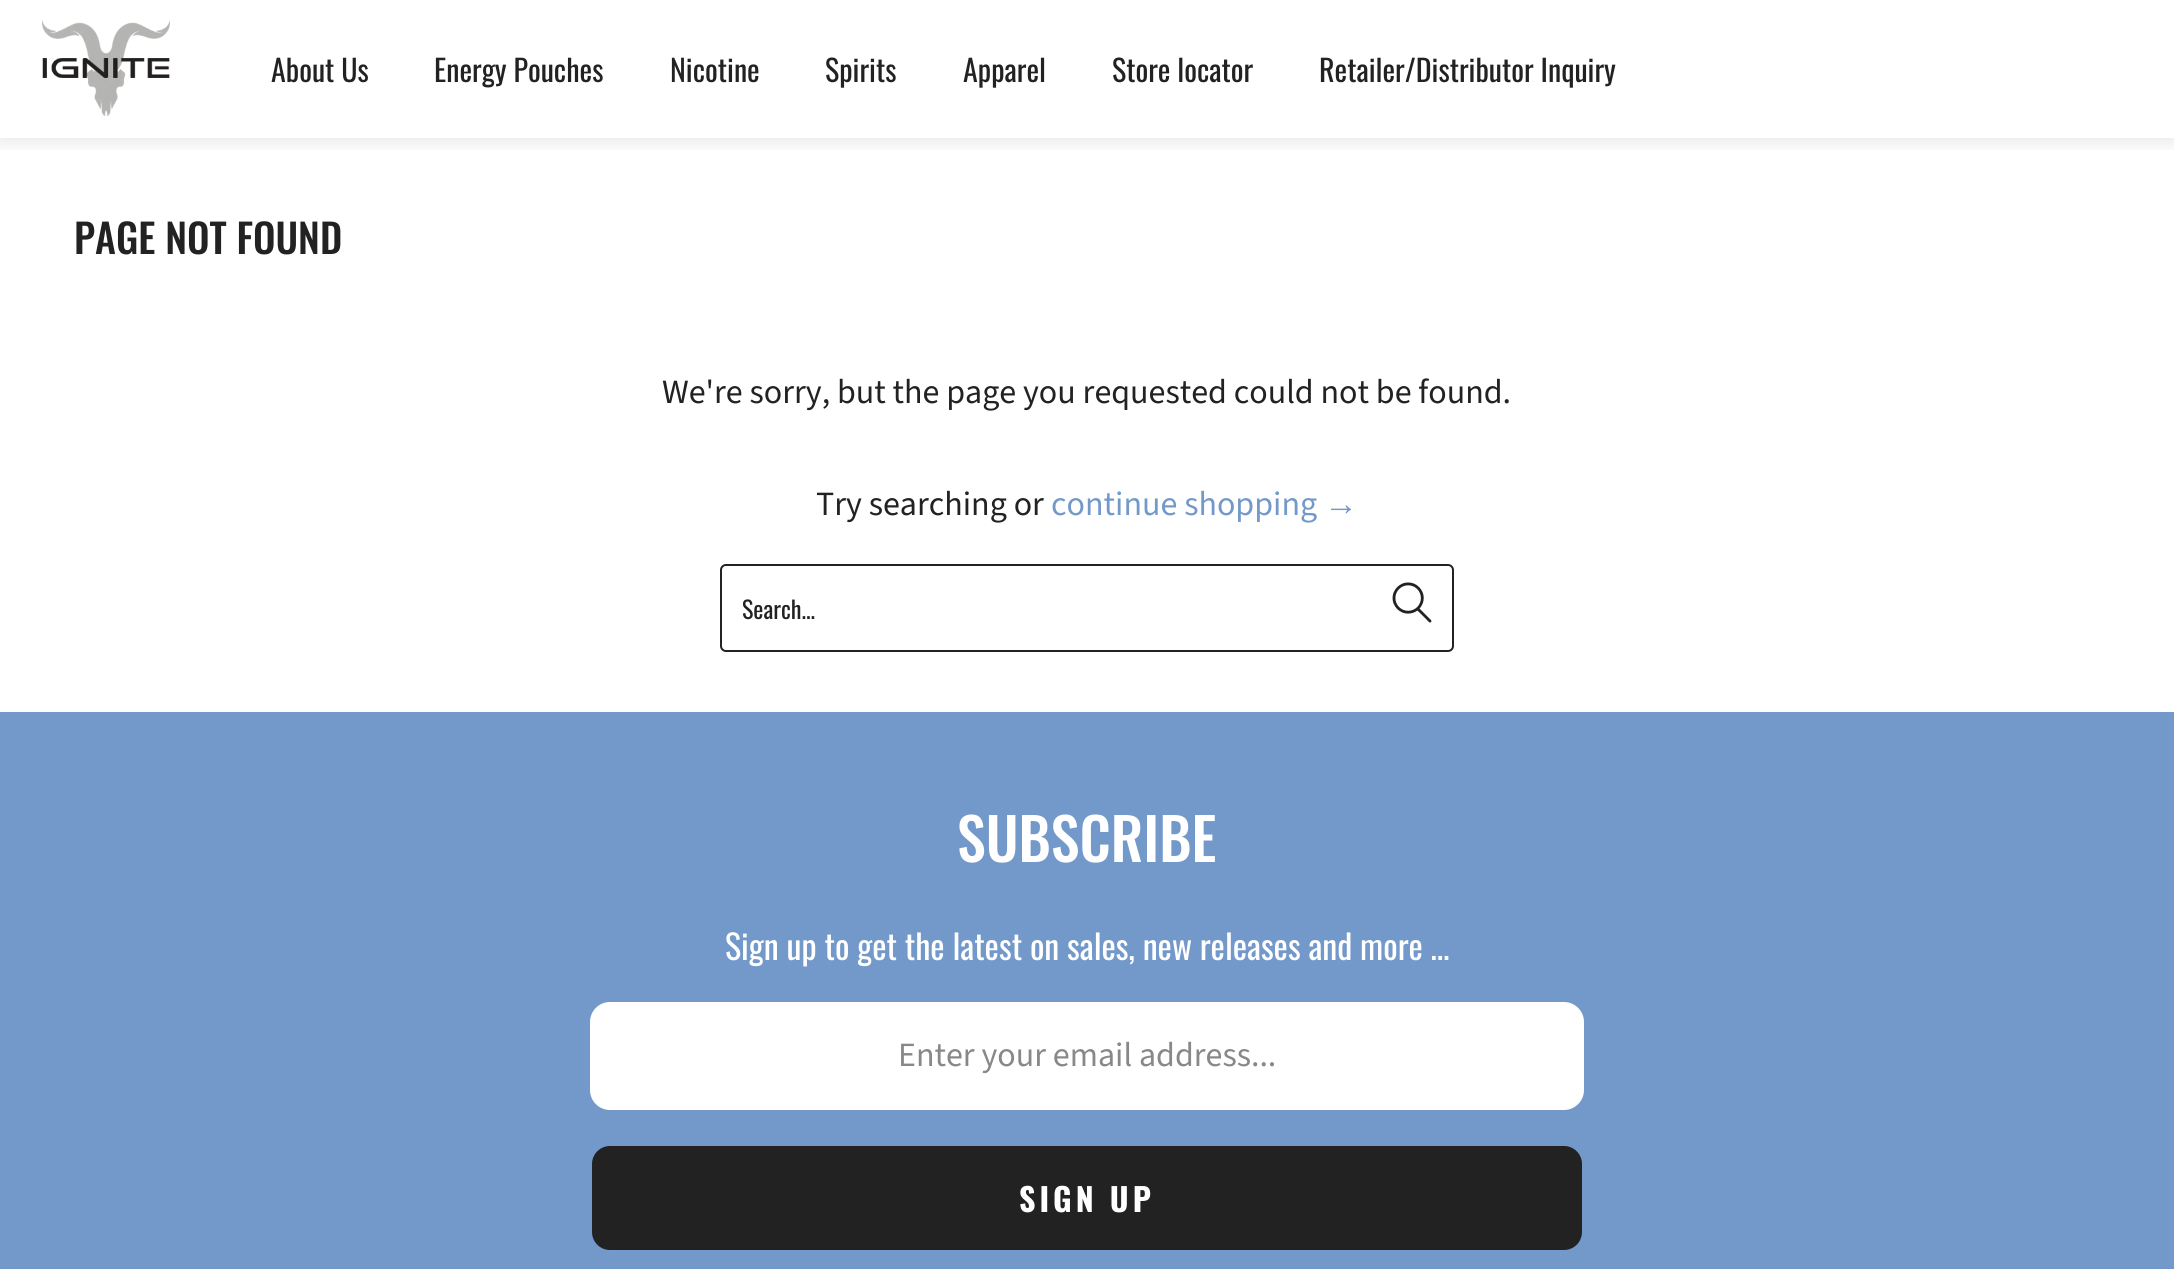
#include <cairo.h>
#include <math.h>
#include <stddef.h>

typedef struct { const char *family; double size; int italic, bold; unsigned color; } style_t;
static cairo_t *ctx;

static void ink(unsigned color) {
    cairo_set_source_rgb(ctx, (color >> 16) / 255.0, (color >> 8 & 255) / 255.0, (color & 255) / 255.0);
}

static void write(double x, double y, const char *s, const style_t *st) {
    cairo_select_font_face(ctx, st->family, st->italic ? CAIRO_FONT_SLANT_ITALIC : CAIRO_FONT_SLANT_NORMAL,
        st->bold ? CAIRO_FONT_WEIGHT_BOLD : CAIRO_FONT_WEIGHT_NORMAL);
    cairo_set_font_size(ctx, st->size);
    ink(st->color);
    cairo_move_to(ctx, x, y);
    cairo_show_text(ctx, s);
}

static void write_spaced(double x, double y, const char *s, double letter, double word) {
    cairo_move_to(ctx, x, y);
    while (*s) {
        char ch[5] = {0};
        int n = 0;
        do ch[n++] = *s++; while ((*s & 0xC0) == 0x80);
        cairo_show_text(ctx, ch);
        cairo_rel_move_to(ctx, letter + word * (*ch == ' '), 0);
    }
}

static void block(double x, double y, double w, double h, unsigned color) {
    ink(color);
    cairo_rectangle(ctx, x, y, w, h);
    cairo_fill(ctx);
}

static void round_path(double x, double y, double w, double h, double r) {
    cairo_new_sub_path(ctx);
    cairo_arc(ctx, x + w - r, y + h - r, r, 0, M_PI / 2);
    cairo_arc(ctx, x + r, y + h - r, r, M_PI / 2, M_PI);
    cairo_arc(ctx, x + r, y + r, r, M_PI, 1.5 * M_PI);
    cairo_arc(ctx, x + w - r, y + r, r, 1.5 * M_PI, 2 * M_PI);
    cairo_close_path(ctx);
}

static void blur_box(double x, double y, double w, double h, double r, double blur, double alpha) {
    cairo_push_group_with_content(ctx, CAIRO_CONTENT_ALPHA);
    cairo_set_operator(ctx, CAIRO_OPERATOR_SOURCE);
    for (int i = 15; i >= -15 && fmin(w, h) + blur * i / 3 > 0; i -= 2) {
        double e = blur * i / 6;
        cairo_set_source_rgba(ctx, 0, 0, 0, alpha * erfc((i - 1) / 8.5) / 2);
        round_path(x - e, y - e, w + 2 * e, h + 2 * e, fmax(0, fmin(r + e + blur * .6, fmin(w, h) / 2 + e)));
        cairo_fill(ctx);
    }
    cairo_pattern_t *soft = cairo_pop_group(ctx);
    cairo_mask(ctx, soft);
    cairo_pattern_destroy(soft);
}

static void paste(const char *path, double x, double y, double w, double h) {
    cairo_surface_t *image = cairo_image_surface_create_from_png(path);
    cairo_save(ctx);
    cairo_set_source_surface(ctx, image, x, y);
    cairo_rectangle(ctx, x, y, w, h);
    cairo_fill(ctx);
    cairo_restore(ctx);
    cairo_surface_destroy(image);
}

static const style_t s1 = {"Oswald", 30, 0, 0, 0x232222};
static const style_t s2 = {"Oswald Medium", 40, 0, 0, 0x232222};
static const style_t s3 = {"Source Sans Pro", 34, 0, 0, 0x232222};
static const style_t s4 = {"Source Sans Pro", 34, 0, 0, 0x7399cb};
static const style_t s5 = {"Liberation Sans", 34, 0, 0, 0x7399cb};
static const style_t s6 = {"Oswald", 24, 0, 0, 0x232222};
static const style_t s7 = {"Oswald Medium", 58, 0, 0, 0xffffff};
static const style_t s8 = {"Oswald", 34, 0, 0, 0xffffff};
static const style_t s9 = {"Source Sans Pro", 34, 0, 0, 0x888888};

int main(void) {
    cairo_surface_t *surface = cairo_image_surface_create(CAIRO_FORMAT_RGB24, 2174, 1269);
    ctx = cairo_create(surface);
    cairo_font_options_t *options = cairo_font_options_create();
    cairo_font_options_set_hint_metrics(options, CAIRO_HINT_METRICS_OFF);
    cairo_font_options_set_hint_style(options, CAIRO_HINT_STYLE_NONE);
    cairo_set_font_options(ctx, options);
    cairo_set_miter_limit(ctx, 4);
    ink(0xffffff);
    cairo_paint(ctx);
    cairo_save(ctx);
    cairo_rectangle(ctx, 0, 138, 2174, 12);
    cairo_clip(ctx);
    ink(0x000000);
    blur_box(0, 4, 2174, 138, 0, 10, 0.1);
    cairo_restore(ctx);
    paste("pic1.png", 42, 20, 128, 96);
    write(271, 82, "About Us", &s1);
    write(434, 82, "Energy Pouches", &s1);
    write(670, 82, "Nicotine", &s1);
    write(825, 82, "Spirits", &s1);
    write(963, 82, "Apparel", &s1);
    write(1112, 82, "Store locator", &s1);
    write(1319, 82, "Retailer/Distributor Inquiry", &s1);
    write(74, 254, "PAGE NOT FOUND", &s2);
    write(662, 403, "We're sorry, but the page you requested could not be found.", &s3);
    write(816, 515, "Try searching or", &s3);
    write(1051, 515, "continue shopping", &s4);
    write(1324, 515, "→", &s5);
    round_path(721, 565, 732, 86, 5);
    ink(0x232222);
    cairo_stroke(ctx);
    write(742, 619, "Search...", &s6);
    paste("pic2.png", 1392, 582, 40, 41);
    block(0, 712, 2174, 557, 0x7399cb);
    write(957, 862, "SUBSCRIBE", &s7);
    write(725, 960, "Sign up to get the latest on sales, new releases and more …", &s8);
    round_path(590, 1002, 994, 108, 20);
    cairo_fill(ctx);
    write(898, 1066, "Enter your email address...", &s9);
    ink(0x232222);
    round_path(591, 1145, 992, 106, 19);
    cairo_fill_preserve(ctx);
    ink(0x7399cb);
    cairo_stroke(ctx);
    cairo_select_font_face(ctx, "Oswald", CAIRO_FONT_SLANT_NORMAL, CAIRO_FONT_WEIGHT_BOLD);
    cairo_set_font_size(ctx, 32);
    ink(0xffffff);
    write_spaced(1019, 1212, "SIGN UP", 4, 0);
    cairo_surface_write_to_png(surface, "screenshot.png");
    cairo_font_options_destroy(options);
    cairo_destroy(ctx);
    cairo_surface_destroy(surface);
    return 0;
}
